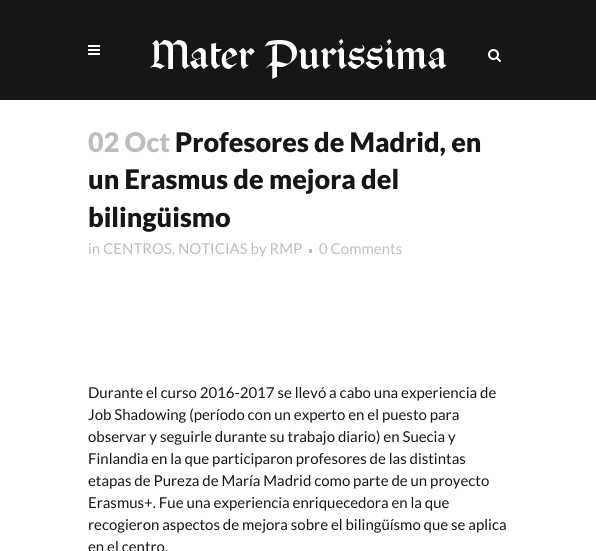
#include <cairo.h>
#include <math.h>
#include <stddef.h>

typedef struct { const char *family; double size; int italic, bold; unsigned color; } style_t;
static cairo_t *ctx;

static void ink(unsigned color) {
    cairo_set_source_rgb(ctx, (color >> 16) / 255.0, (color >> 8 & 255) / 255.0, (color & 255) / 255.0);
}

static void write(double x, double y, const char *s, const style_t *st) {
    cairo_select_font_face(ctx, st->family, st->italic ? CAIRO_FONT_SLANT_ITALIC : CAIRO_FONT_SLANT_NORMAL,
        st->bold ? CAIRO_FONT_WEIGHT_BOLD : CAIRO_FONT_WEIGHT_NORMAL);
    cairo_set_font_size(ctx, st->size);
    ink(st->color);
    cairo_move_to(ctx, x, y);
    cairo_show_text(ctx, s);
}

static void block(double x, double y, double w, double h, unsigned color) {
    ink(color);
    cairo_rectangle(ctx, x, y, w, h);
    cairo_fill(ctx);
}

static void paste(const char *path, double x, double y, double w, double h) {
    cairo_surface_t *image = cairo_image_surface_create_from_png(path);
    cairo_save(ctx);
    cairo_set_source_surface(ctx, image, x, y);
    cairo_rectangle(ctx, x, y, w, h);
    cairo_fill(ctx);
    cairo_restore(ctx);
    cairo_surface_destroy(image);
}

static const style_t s1 = {"Lato Black", 27, 0, 0, 0xbebebe};
static const style_t s2 = {"Lato Black", 27, 0, 0, 0x161616};
static const style_t s3 = {"Lato", 15, 0, 0, 0xbebebe};
static const style_t s4 = {"Lato", 15, 0, 0, 0x161616};

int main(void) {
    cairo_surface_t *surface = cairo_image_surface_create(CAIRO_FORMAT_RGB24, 596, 551);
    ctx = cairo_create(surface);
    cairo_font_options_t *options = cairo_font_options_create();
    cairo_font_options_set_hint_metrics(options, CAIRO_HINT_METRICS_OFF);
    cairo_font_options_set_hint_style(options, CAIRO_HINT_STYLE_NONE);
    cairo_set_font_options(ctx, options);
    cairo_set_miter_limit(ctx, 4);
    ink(0xffffff);
    cairo_paint(ctx);
    block(0, 0, 596, 100, 0x161616);
    paste("pic1.png", 88, 45, 12, 10);
    paste("pic2.png", 149, 39, 298, 40);
    paste("pic3.png", 488, 49, 13, 13);
    write(88, 152, "02 Oct", &s1);
    write(175, 152, "Profesores de Madrid, en", &s2);
    write(88, 189, "un Erasmus de mejora del", &s2);
    write(88, 227, "bilingüismo", &s2);
    write(88, 254, "in CENTROS, NOTICIAS by RMP", &s3);
    block(309, 249, 3, 4, 0xbebebe);
    write(319, 254, "0 Comments", &s3);
    write(88, 398, "Durante el curso 2016-2017 se llevó a cabo una experiencia de", &s4);
    write(88, 420, "Job Shadowing (período con un experto en el puesto para", &s4);
    write(88, 442, "observar y seguirle durante su trabajo diario) en Suecia y", &s4);
    write(88, 464, "Finlandia en la que participaron profesores de las distintas", &s4);
    write(88, 486, "etapas de Pureza de María Madrid como parte de un proyecto", &s4);
    write(88, 508, "Erasmus+. Fue una experiencia enriquecedora en la que", &s4);
    write(88, 530, "recogieron aspectos de mejora sobre el bilingüísmo que se aplica", &s4);
    write(88, 552, "en el centro.", &s4);
    cairo_surface_write_to_png(surface, "screenshot.png");
    cairo_font_options_destroy(options);
    cairo_destroy(ctx);
    cairo_surface_destroy(surface);
    return 0;
}
